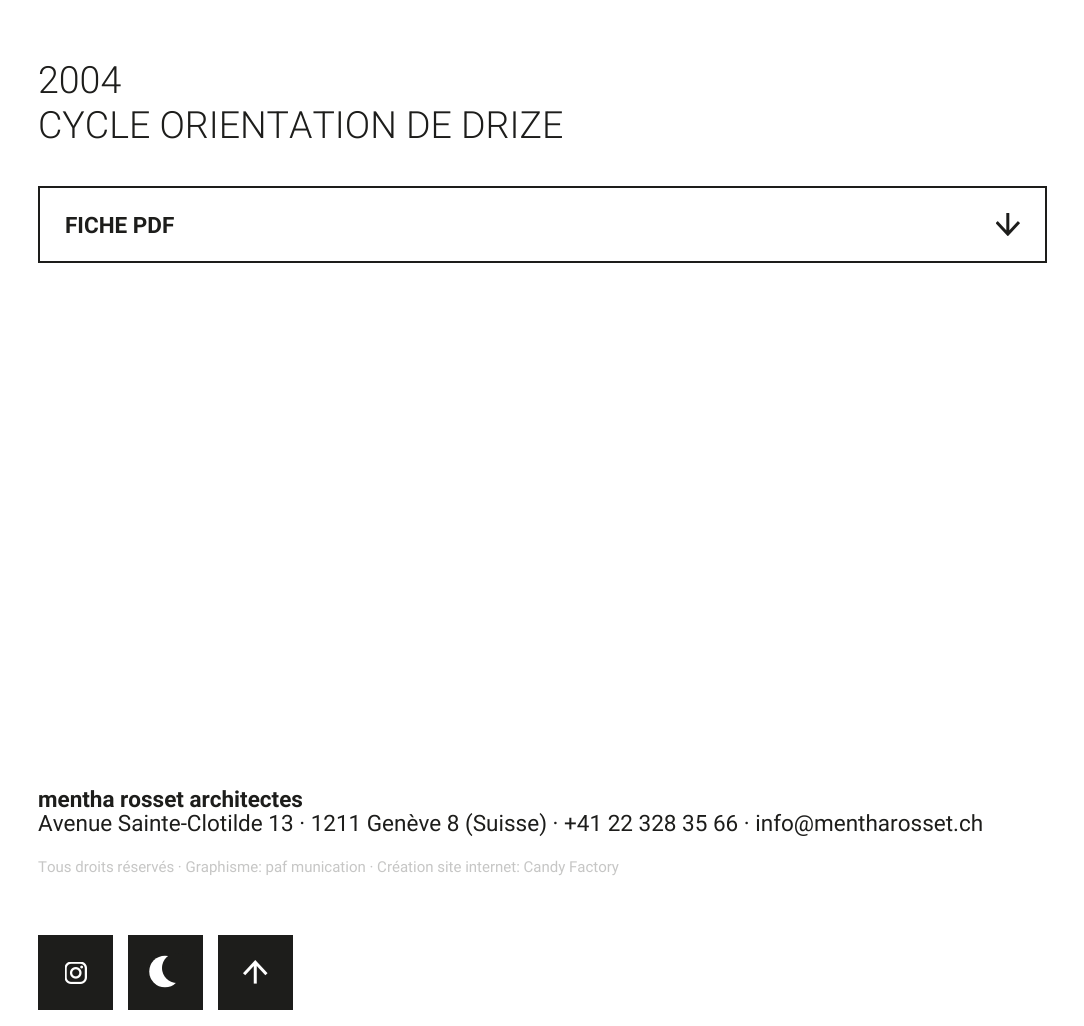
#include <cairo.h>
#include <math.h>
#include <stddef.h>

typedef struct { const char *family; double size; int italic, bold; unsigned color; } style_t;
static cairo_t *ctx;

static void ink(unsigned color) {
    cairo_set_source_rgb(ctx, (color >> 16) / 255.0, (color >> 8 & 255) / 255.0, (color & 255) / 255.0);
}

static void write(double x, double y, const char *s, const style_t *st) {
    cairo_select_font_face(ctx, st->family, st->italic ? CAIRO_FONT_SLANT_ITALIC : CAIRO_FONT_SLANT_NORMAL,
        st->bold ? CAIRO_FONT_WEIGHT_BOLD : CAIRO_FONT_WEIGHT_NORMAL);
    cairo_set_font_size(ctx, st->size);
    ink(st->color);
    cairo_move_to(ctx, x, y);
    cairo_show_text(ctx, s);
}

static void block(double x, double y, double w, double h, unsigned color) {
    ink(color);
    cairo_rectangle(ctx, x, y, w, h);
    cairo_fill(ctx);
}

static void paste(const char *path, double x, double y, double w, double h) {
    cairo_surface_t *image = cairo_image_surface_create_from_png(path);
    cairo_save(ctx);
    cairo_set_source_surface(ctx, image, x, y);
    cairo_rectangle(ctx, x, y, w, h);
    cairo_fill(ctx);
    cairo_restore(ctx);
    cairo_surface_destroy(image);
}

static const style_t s1 = {"Roboto Light", 37.5, 0, 0, 0x1d1d1b};
static const style_t s2 = {"Roboto", 22.5, 0, 1, 0x1d1d1b};
static const style_t s3 = {"Roboto", 22.5, 0, 0, 0x1d1d1b};
static const style_t s4 = {"Roboto", 15, 0, 0, 0xc6c6c5};

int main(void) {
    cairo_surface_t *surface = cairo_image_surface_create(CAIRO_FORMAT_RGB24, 1084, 1026);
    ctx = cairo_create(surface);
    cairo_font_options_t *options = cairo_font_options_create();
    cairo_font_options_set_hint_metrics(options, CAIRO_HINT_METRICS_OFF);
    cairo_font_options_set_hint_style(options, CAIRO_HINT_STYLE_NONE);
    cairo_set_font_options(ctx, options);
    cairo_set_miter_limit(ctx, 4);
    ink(0xffffff);
    cairo_paint(ctx);
    write(38, 93, "2004", &s1);
    write(38, 138, "CYCLE ORIENTATION DE DRIZE", &s1);
    cairo_rectangle(ctx, 39, 187, 1007, 75);
    cairo_stroke(ctx);
    write(65, 233, "FICHE PDF", &s2);
    paste("pic1.png", 996, 213, 24, 23);
    write(38, 807, "mentha rosset architectes", &s2);
    write(38, 831, "Avenue Sainte-Clotilde 13 · 1211 Genève 8 (Suisse) · +41 22 328 35 66 · info@mentharosset.ch", &s3);
    write(38, 872, "Tous droits réservés · Graphisme: paf munication · Création site internet: Candy Factory", &s4);
    block(38, 935, 75, 75, 0x1d1d1b);
    paste("pic2.png", 65, 962, 22, 22);
    block(128, 935, 75, 75, 0x1d1d1b);
    paste("pic3.png", 149, 955, 28, 33);
    cairo_arc(ctx, 177, 968, 15, 0, 2 * M_PI);
    cairo_fill(ctx);
    block(218, 935, 75, 75, 0x1d1d1b);
    paste("pic4.png", 243, 960, 25, 24);
    cairo_surface_write_to_png(surface, "screenshot.png");
    cairo_font_options_destroy(options);
    cairo_destroy(ctx);
    cairo_surface_destroy(surface);
    return 0;
}
